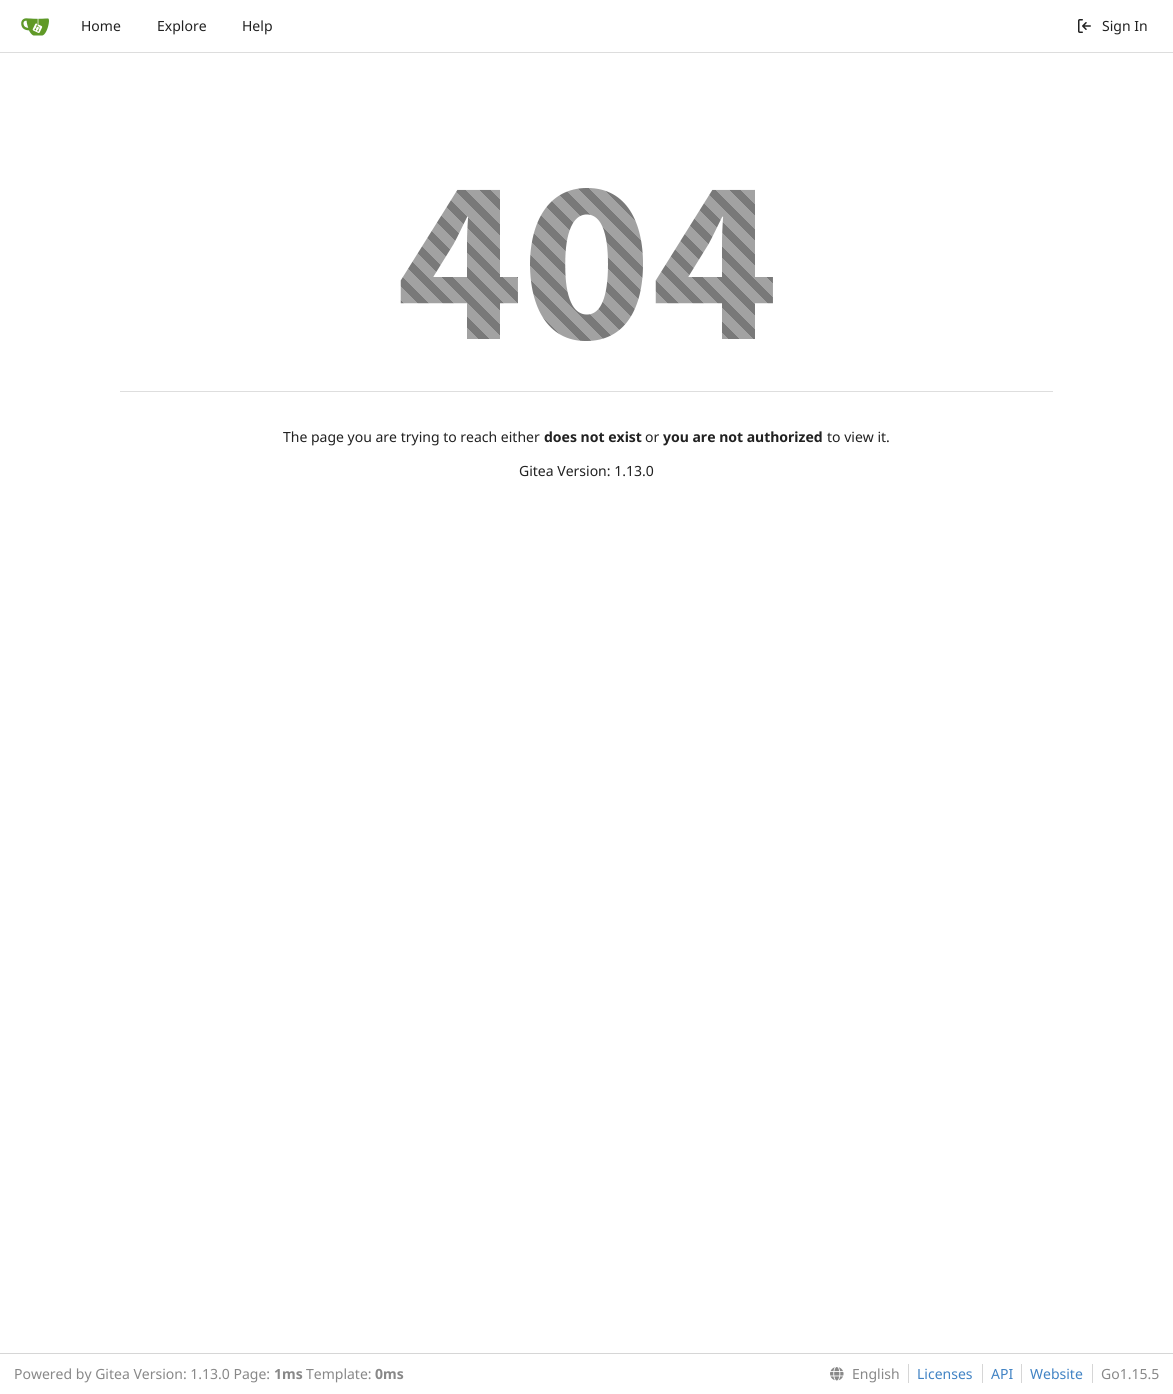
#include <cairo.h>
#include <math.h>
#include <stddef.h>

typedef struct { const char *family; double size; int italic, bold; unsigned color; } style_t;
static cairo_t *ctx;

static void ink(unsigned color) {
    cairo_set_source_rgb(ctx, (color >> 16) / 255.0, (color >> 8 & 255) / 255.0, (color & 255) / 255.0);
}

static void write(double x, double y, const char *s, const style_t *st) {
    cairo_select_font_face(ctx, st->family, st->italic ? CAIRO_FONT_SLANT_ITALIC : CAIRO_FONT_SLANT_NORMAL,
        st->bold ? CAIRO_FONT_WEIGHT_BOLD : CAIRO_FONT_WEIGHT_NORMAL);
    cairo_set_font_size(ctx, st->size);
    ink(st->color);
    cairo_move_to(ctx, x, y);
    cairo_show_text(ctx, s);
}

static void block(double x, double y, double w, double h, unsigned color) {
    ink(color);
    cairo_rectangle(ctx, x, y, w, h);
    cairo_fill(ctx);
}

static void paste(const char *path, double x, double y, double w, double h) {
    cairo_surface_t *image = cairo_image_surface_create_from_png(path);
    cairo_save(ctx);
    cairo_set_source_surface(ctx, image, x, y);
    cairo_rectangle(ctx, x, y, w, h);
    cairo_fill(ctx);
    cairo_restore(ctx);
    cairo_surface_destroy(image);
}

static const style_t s1 = {"Noto Sans", 14, 0, 0, 0x212121};
static const style_t s2 = {"Noto Sans", 14, 0, 1, 0x212121};
static const style_t s3 = {"Noto Sans", 14, 0, 0, 0x888888};
static const style_t s4 = {"Noto Sans", 14, 0, 1, 0x888888};
static const style_t s5 = {"Noto Sans", 14, 0, 0, 0x4183c4};

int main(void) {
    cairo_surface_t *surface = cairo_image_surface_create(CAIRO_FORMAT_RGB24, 1173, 1394);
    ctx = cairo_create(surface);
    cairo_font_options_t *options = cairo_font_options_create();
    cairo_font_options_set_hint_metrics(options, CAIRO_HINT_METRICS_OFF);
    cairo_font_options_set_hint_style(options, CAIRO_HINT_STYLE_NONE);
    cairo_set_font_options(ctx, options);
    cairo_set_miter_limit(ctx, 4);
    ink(0xffffff);
    cairo_paint(ctx);
    block(0, 52, 1173, 1, 0xdddddd);
    paste("pic1.png", 21, 18, 28, 18);
    write(81, 31, "Home", &s1);
    write(157, 31, "Explore", &s1);
    write(242, 31, "Help", &s1);
    paste("pic2.png", 1078, 19, 13, 14);
    write(1102, 31, "Sign In", &s1);
    paste("pic3.png", 400, 188, 373, 153);
    block(120, 391, 933, 1, 0xdedede);
    write(283, 442, "The page you are trying to reach either", &s1);
    write(544, 442, "does not exist", &s2);
    write(645, 442, "or", &s1);
    write(663, 442, "you are not authorized", &s2);
    write(827, 442, "to view it.", &s1);
    write(519, 476, "Gitea Version: 1.13.0", &s1);
    block(0, 1353, 1173, 1, 0xd6d6d6);
    write(14, 1379, "Powered by Gitea Version: 1.13.0 Page:", &s3);
    write(274, 1379, "1ms", &s4);
    write(306, 1379, "Template:", &s3);
    write(375, 1379, "0ms", &s4);
    paste("pic4.png", 830, 1367, 14, 14);
    write(852, 1379, "English", &s3);
    write(917, 1379, "Licenses", &s5);
    block(908, 1364, 1, 19, 0xd6d6d6);
    write(991, 1379, "API", &s5);
    block(982, 1364, 1, 19, 0xd6d6d6);
    write(1030, 1379, "Website", &s5);
    block(1021, 1364, 1, 19, 0xd6d6d6);
    write(1101, 1379, "Go1.15.5", &s3);
    block(1092, 1364, 1, 19, 0xd6d6d6);
    cairo_surface_write_to_png(surface, "screenshot.png");
    cairo_font_options_destroy(options);
    cairo_destroy(ctx);
    cairo_surface_destroy(surface);
    return 0;
}
